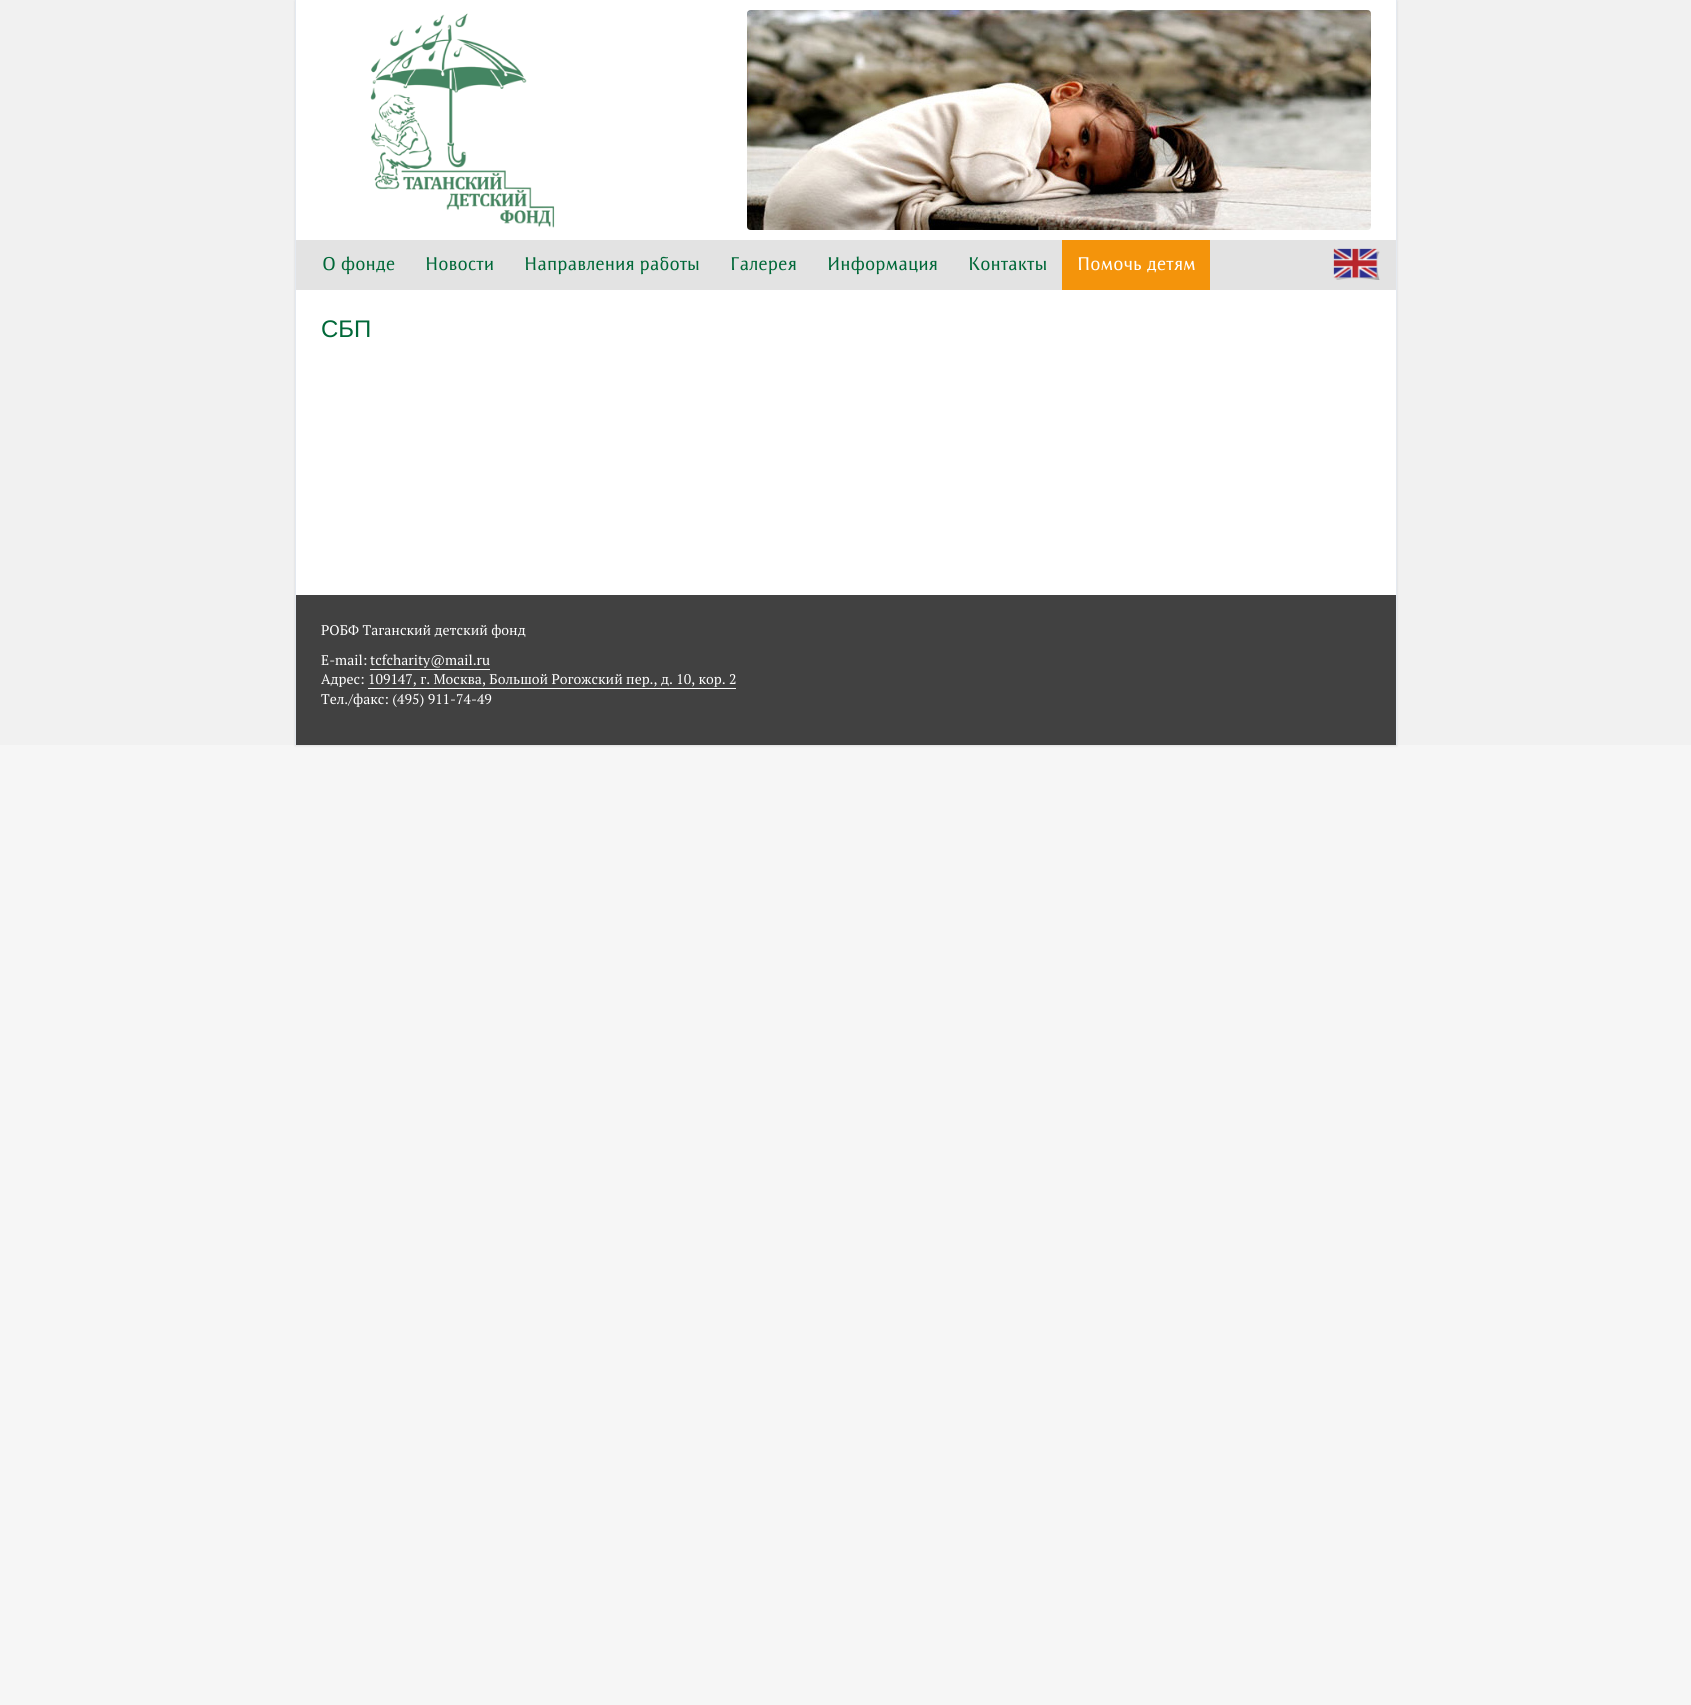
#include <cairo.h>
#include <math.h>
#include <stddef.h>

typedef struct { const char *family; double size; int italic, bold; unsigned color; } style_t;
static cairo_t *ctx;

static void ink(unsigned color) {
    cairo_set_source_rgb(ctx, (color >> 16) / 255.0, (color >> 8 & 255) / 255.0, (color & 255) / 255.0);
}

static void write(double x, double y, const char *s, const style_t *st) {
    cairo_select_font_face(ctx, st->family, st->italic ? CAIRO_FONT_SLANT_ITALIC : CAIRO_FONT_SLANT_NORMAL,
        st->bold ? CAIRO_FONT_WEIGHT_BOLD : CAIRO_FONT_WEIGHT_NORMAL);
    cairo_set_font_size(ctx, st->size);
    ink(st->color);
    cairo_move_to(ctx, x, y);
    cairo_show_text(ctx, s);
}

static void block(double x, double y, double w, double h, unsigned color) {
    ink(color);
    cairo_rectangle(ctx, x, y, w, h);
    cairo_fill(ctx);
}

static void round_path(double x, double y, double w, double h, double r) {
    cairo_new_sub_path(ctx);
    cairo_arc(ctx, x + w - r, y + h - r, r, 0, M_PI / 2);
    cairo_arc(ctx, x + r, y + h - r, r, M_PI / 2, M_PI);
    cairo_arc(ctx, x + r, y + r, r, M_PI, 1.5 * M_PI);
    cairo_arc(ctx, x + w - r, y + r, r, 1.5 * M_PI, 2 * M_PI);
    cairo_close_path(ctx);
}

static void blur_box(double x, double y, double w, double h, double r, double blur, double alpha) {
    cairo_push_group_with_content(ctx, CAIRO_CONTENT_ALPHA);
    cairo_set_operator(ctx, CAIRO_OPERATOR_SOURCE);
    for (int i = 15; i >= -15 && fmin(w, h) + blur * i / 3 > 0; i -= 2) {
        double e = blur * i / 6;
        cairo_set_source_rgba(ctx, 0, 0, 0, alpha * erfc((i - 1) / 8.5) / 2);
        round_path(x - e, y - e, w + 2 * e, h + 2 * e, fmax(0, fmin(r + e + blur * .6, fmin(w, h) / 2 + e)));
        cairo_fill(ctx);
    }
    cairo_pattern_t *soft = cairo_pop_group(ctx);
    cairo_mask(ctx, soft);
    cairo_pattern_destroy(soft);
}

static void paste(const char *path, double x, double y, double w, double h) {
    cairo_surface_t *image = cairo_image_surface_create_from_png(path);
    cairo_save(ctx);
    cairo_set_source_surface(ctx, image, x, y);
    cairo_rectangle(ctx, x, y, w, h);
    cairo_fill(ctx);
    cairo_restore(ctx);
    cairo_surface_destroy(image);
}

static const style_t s1 = {"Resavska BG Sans", 19, 0, 0, 0x006838};
static const style_t s2 = {"Resavska BG Sans", 19, 0, 0, 0xffffff};
static const style_t s3 = {"Liberation Sans", 24, 0, 0, 0x006838};
static const style_t s4 = {"PT Serif", 14, 0, 0, 0xffffff};

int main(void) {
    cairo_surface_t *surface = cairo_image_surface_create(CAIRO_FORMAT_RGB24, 1691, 1705);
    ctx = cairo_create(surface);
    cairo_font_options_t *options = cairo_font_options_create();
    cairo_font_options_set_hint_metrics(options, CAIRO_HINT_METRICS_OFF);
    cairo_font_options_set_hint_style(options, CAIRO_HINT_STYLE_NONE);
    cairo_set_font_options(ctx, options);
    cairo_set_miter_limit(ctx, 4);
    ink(0xf6f6f6);
    cairo_paint(ctx);
    block(0, 0, 1691, 745, 0xf1f1f1);
    ink(0x000000);
    blur_box(295, 1, 1102, 745, 0, 1, 0.1);
    block(296, 0, 1100, 595, 0xffffff);
    block(1396, 0, 1, 745, 0xe4e9f0);
    block(295, 0, 1, 745, 0xe4e9f0);
    paste("pic1.png", 370, 13, 185, 215);
    paste("pic2.png", 747, 10, 624, 220);
    block(296, 240, 1100, 50, 0xe3e3e3);
    write(322, 270, "О фонде", &s1);
    write(425, 270, "Новости", &s1);
    write(524, 270, "Направления работы", &s1);
    write(730, 270, "Галерея", &s1);
    write(827, 270, "Информация", &s1);
    write(968, 270, "Контакты", &s1);
    block(1062, 240, 148, 50, 0xf4940b);
    write(1077, 270, "Помочь детям", &s2);
    paste("pic3.png", 1333, 248, 47, 32);
    write(321, 337, "СБП", &s3);
    block(296, 595, 1100, 150, 0x414141);
    write(321, 635, "РОБФ Таганский детский фонд", &s4);
    write(321, 665, "E-mail:", &s4);
    write(370, 665, "tcfcharity@mail.ru", &s4);
    block(370, 669, 120, 1, 0xfafafa);
    write(321, 684, "Адрес:", &s4);
    write(368, 684, "109147, г. Москва, Большой Рогожский пер., д. 10, кор. 2", &s4);
    block(368, 688, 368, 1, 0xfafafa);
    write(321, 704, "Тел./факс: (495) 911-74-49", &s4);
    cairo_surface_write_to_png(surface, "screenshot.png");
    cairo_font_options_destroy(options);
    cairo_destroy(ctx);
    cairo_surface_destroy(surface);
    return 0;
}
